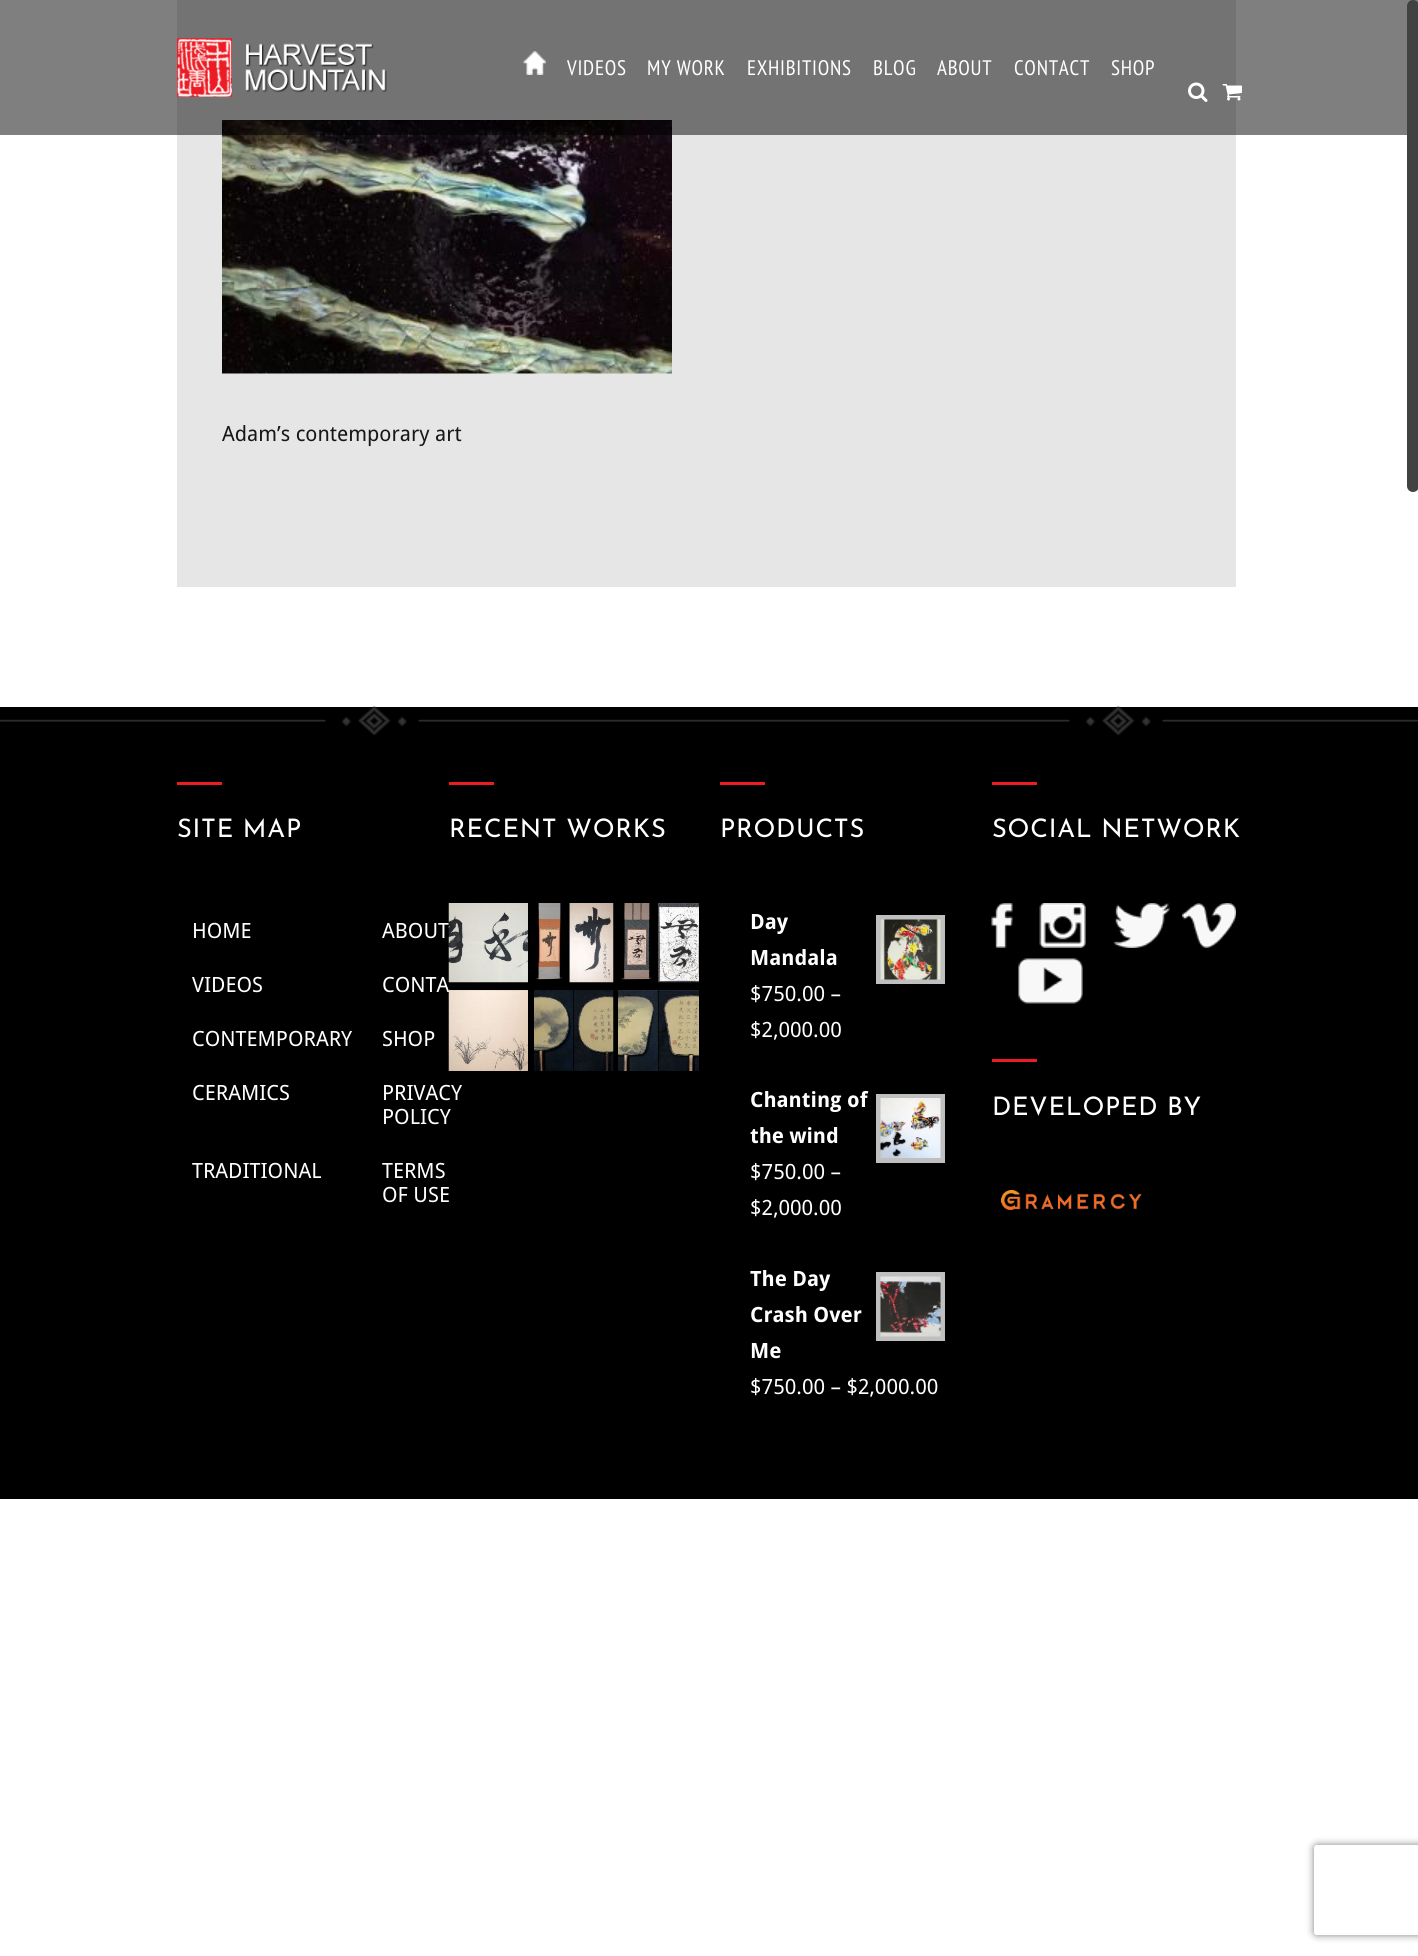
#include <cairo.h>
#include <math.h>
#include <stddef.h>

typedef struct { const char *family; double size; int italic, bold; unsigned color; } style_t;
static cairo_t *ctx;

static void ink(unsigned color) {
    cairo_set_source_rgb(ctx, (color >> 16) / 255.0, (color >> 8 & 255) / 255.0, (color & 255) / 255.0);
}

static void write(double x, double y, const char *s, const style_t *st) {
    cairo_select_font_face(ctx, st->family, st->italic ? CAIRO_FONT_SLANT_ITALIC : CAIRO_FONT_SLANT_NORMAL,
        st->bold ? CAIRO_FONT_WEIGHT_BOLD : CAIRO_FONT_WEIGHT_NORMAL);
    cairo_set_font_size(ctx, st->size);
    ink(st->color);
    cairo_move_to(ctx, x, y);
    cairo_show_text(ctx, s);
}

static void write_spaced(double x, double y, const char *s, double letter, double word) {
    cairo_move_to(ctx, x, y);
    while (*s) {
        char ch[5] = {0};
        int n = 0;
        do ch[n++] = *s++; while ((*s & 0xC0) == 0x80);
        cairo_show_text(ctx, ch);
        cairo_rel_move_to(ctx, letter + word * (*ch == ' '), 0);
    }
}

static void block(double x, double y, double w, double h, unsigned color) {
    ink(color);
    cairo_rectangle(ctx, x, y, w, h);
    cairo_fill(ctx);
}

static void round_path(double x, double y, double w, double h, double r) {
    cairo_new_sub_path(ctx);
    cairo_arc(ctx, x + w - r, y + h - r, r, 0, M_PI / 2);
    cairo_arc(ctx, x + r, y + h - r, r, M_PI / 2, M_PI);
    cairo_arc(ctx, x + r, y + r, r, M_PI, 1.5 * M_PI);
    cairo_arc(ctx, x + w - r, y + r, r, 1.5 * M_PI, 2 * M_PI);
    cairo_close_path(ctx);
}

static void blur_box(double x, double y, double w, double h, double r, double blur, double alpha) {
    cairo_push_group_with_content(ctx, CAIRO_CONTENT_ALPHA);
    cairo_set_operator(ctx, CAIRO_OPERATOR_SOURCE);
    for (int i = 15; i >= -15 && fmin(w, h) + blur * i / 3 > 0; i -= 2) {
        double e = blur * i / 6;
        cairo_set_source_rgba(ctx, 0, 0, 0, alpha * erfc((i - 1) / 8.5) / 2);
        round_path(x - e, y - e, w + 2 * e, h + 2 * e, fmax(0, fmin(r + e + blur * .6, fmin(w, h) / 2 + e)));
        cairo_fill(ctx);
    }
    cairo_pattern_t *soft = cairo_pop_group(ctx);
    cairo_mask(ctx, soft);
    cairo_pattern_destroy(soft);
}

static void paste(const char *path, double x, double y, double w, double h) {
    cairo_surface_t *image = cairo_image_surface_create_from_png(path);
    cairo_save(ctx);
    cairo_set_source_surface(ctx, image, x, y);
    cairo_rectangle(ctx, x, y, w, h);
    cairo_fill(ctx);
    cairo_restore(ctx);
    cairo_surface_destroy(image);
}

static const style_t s1 = {"Droid Sans", 21, 0, 0, 0x171717};
static const style_t s2 = {"Droid Sans", 21, 0, 0, 0xffffff};
static const style_t s3 = {"Droid Sans", 21, 0, 1, 0xffffff};

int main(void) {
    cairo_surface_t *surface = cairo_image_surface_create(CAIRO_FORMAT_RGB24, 1418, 1956);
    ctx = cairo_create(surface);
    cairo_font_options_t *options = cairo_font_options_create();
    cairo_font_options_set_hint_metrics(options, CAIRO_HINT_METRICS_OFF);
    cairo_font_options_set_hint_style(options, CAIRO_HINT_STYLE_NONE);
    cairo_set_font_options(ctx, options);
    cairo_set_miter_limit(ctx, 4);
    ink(0xffffff);
    cairo_paint(ctx);
    block(177, 0, 1059, 587, 0xe6e6e6);
    paste("pic5.png", 222, 120, 450, 254);
    cairo_set_source_rgba(ctx, 0, 0, 0, 0.5);
    cairo_rectangle(ctx, 0, 0, 1418, 135);
    cairo_fill(ctx);
    paste("pic1.png", 177, 38, 210, 59);
    paste("pic2.png", 523, 51, 23, 24);
    cairo_select_font_face(ctx, "PT Sans Narrow", CAIRO_FONT_SLANT_NORMAL, CAIRO_FONT_WEIGHT_NORMAL);
    cairo_set_font_size(ctx, 21);
    ink(0xffffff);
    write_spaced(567, 75, "VIDEOS", 0.75, 0);
    write_spaced(647, 75, "MY WORK", 0.75, 0);
    write_spaced(747, 75, "EXHIBITIONS", 0.75, 0);
    write_spaced(873, 75, "BLOG", 0.75, 0);
    write_spaced(937, 75, "ABOUT", 0.75, 0);
    write_spaced(1014, 75, "CONTACT", 0.75, 0);
    write_spaced(1111, 75, "SHOP", 0.75, 0);
    paste("pic3.png", 1188, 82, 20, 20);
    paste("pic4.png", 1222, 84, 20, 17);
    write(222, 441, "Adam’s contemporary art", &s1);
    block(0, 707, 1418, 792, 0x000000);
    paste("pic6.png", 0, 706, 1418, 29);
    block(177, 782, 45, 3, 0xed1c24);
    cairo_select_font_face(ctx, "Josefin Sans", CAIRO_FONT_SLANT_NORMAL, CAIRO_FONT_WEIGHT_NORMAL);
    cairo_set_font_size(ctx, 25.5);
    ink(0xffffff);
    write_spaced(177, 837, "SITE MAP", 0.75, 0);
    write(192, 938, "HOME", &s2);
    write(382, 938, "ABOUT", &s2);
    write(192, 992, "VIDEOS", &s2);
    write(382, 992, "CONTA", &s2);
    write(192, 1046, "CONTEMPORARY", &s2);
    write(382, 1046, "SHOP", &s2);
    write(192, 1100, "CERAMICS", &s2);
    write(382, 1100, "PRIVACY", &s2);
    write(382, 1124, "POLICY", &s2);
    write(192, 1178, "TRADITIONAL", &s2);
    write(382, 1178, "TERMS", &s2);
    write(382, 1202, "OF USE", &s2);
    block(449, 782, 45, 3, 0xed1c24);
    cairo_select_font_face(ctx, "Josefin Sans", CAIRO_FONT_SLANT_NORMAL, CAIRO_FONT_WEIGHT_NORMAL);
    cairo_set_font_size(ctx, 25.5);
    ink(0xffffff);
    write_spaced(449, 837, "RECENT WORKS", 0.75, 0);
    paste("pic7.png", 448, 903, 80, 80);
    paste("pic8.png", 534, 903, 80, 80);
    paste("pic9.png", 618, 903, 81, 80);
    paste("pic10.png", 448, 990, 80, 81);
    paste("pic11.png", 534, 990, 80, 81);
    paste("pic12.png", 618, 990, 81, 81);
    block(720, 782, 45, 3, 0xed1c24);
    ink(0xffffff);
    write_spaced(720, 837, "PRODUCTS", 0.75, 0);
    write(750, 929, "Day", &s3);
    cairo_rectangle(ctx, 878.5, 917.5, 64, 64);
    ink(0xbfbfbf);
    cairo_set_line_width(ctx, 5);
    cairo_stroke(ctx);
    paste("pic13.png", 880, 919, 61, 61);
    write(750, 965, "Mandala", &s3);
    write(750, 1001, "$750.00 –", &s2);
    write(750, 1037, "$2,000.00", &s2);
    write(750, 1107, "Chanting of", &s3);
    cairo_rectangle(ctx, 878.5, 1096.5, 64, 64);
    ink(0xbfbfbf);
    cairo_stroke(ctx);
    paste("pic14.png", 880, 1098, 61, 60);
    write(750, 1143, "the wind", &s3);
    write(750, 1179, "$750.00 –", &s2);
    write(750, 1215, "$2,000.00", &s2);
    write(750, 1286, "The Day", &s3);
    cairo_rectangle(ctx, 878.5, 1274.5, 64, 64);
    ink(0xbfbfbf);
    cairo_stroke(ctx);
    paste("pic15.png", 880, 1276, 61, 61);
    write(750, 1322, "Crash Over", &s3);
    write(750, 1358, "Me", &s3);
    write(750, 1394, "$750.00 – $2,000.00", &s2);
    block(992, 782, 45, 3, 0xed1c24);
    cairo_select_font_face(ctx, "Josefin Sans", CAIRO_FONT_SLANT_NORMAL, CAIRO_FONT_WEIGHT_NORMAL);
    cairo_set_font_size(ctx, 25.5);
    ink(0xffffff);
    write_spaced(992, 837, "SOCIAL NETWORK", 0.75, 0);
    paste("pic16.png", 991, 903, 22, 45);
    paste("pic17.png", 1039, 903, 47, 45);
    paste("pic18.png", 1113, 903, 57, 45);
    paste("pic19.png", 1182, 903, 54, 45);
    paste("pic20.png", 1018, 958, 65, 46);
    block(992, 1059, 45, 3, 0xed1c24);
    ink(0xffffff);
    write_spaced(992, 1115, "DEVELOPED BY", 0.75, 0);
    paste("pic21.png", 1001, 1189, 141, 21);
    ink(0x424242);
    round_path(1408, 1, 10, 490, 5);
    cairo_fill_preserve(ctx);
    cairo_set_line_width(ctx, 2);
    cairo_stroke(ctx);
    cairo_save(ctx);
    cairo_set_fill_rule(ctx, CAIRO_FILL_RULE_EVEN_ODD);
    cairo_new_path(ctx);
    cairo_move_to(ctx, 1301, 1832);
    cairo_line_to(ctx, 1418, 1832);
    cairo_line_to(ctx, 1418, 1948);
    cairo_line_to(ctx, 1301, 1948);
    cairo_close_path(ctx);
    cairo_move_to(ctx, 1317, 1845);
    cairo_line_to(ctx, 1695, 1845);
    cairo_curve_to(ctx, 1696.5, 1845, 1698, 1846.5, 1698, 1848);
    cairo_line_to(ctx, 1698, 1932);
    cairo_curve_to(ctx, 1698, 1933.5, 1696.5, 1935, 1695, 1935);
    cairo_line_to(ctx, 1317, 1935);
    cairo_curve_to(ctx, 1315.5, 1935, 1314, 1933.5, 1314, 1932);
    cairo_line_to(ctx, 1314, 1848);
    cairo_curve_to(ctx, 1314, 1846.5, 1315.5, 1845, 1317, 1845);
    cairo_close_path(ctx);
    cairo_clip(ctx);
    ink(0x808080);
    blur_box(1314, 1845, 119, 90, 3, 4, 1);
    cairo_restore(ctx);
    cairo_surface_write_to_png(surface, "screenshot.png");
    cairo_font_options_destroy(options);
    cairo_destroy(ctx);
    cairo_surface_destroy(surface);
    return 0;
}
